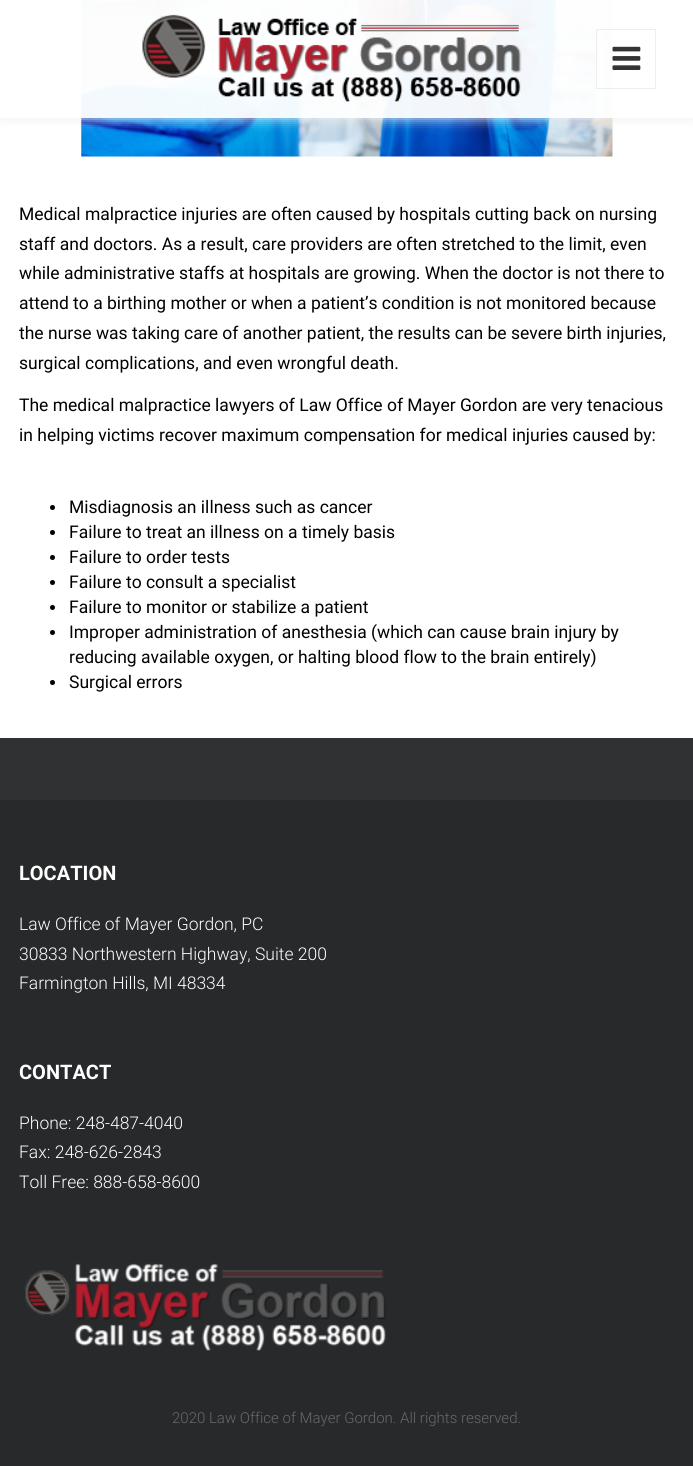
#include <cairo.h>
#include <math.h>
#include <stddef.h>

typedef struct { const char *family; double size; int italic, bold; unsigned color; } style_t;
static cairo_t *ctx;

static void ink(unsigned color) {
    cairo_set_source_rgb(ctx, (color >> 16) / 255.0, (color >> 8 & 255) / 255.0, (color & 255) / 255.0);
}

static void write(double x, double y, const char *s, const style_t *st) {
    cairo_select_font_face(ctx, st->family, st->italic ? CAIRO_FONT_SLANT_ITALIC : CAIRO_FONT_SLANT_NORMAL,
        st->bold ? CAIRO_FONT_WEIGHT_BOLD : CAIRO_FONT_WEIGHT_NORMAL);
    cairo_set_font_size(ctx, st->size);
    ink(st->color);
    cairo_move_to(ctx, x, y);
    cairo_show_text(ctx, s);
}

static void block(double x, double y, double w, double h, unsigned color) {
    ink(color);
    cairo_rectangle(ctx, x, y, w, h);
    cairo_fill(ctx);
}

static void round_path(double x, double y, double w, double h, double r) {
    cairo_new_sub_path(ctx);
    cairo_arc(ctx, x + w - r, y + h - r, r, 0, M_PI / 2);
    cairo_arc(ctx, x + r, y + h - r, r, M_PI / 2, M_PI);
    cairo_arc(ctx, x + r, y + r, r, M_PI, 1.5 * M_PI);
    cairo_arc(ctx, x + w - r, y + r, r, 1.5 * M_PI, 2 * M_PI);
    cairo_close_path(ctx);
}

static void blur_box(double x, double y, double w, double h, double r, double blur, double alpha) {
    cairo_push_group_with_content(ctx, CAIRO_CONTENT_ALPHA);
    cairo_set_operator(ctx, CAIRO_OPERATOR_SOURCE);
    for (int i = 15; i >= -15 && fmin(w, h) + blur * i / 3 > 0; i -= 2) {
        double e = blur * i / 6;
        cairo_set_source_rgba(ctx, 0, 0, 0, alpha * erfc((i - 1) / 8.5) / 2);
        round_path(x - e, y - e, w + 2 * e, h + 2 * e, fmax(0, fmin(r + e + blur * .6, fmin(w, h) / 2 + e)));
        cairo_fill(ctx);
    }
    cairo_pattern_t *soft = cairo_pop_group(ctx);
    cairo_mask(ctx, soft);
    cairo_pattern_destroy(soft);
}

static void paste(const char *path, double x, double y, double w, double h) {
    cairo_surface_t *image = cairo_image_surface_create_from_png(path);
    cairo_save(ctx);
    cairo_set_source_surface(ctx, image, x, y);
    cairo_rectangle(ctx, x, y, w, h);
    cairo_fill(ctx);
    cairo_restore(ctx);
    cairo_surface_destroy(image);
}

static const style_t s1 = {"Roboto", 17.5, 0, 0, 0x000000};
static const style_t s2 = {"Roboto", 20, 0, 1, 0xffffff};
static const style_t s3 = {"Roboto Light", 17.5, 0, 0, 0xffffff};
static const style_t s4 = {"Roboto Light", 15, 0, 0, 0x66686a};

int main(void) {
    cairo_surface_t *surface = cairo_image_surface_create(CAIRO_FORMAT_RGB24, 693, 1466);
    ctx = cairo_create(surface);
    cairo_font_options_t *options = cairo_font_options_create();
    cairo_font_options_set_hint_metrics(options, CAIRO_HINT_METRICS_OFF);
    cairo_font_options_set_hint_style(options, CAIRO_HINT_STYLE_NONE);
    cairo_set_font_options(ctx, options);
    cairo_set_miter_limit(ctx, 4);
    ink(0xffffff);
    cairo_paint(ctx);
    paste("pic3.png", 81, 0, 532, 157);
    cairo_save(ctx);
    cairo_set_fill_rule(ctx, CAIRO_FILL_RULE_EVEN_ODD);
    cairo_new_path(ctx);
    cairo_move_to(ctx, 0, 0);
    cairo_line_to(ctx, 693, 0);
    cairo_line_to(ctx, 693, 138);
    cairo_line_to(ctx, 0, 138);
    cairo_close_path(ctx);
    cairo_move_to(ctx, 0, 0);
    cairo_line_to(ctx, 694, 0);
    cairo_line_to(ctx, 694, 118);
    cairo_line_to(ctx, 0, 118);
    cairo_close_path(ctx);
    cairo_clip(ctx);
    ink(0xf0f0f0);
    blur_box(1, 1, 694, 118, 0, 6, 1);
    cairo_restore(ctx);
    cairo_set_source_rgba(ctx, 1, 1, 1, 0.95);
    cairo_rectangle(ctx, 3, 0, 690, 118);
    cairo_fill(ctx);
    paste("pic1.png", 142, 14, 380, 88);
    cairo_rectangle(ctx, 596.5, 29.5, 59, 59);
    ink(0xeeeeee);
    cairo_set_line_width(ctx, 1);
    cairo_stroke(ctx);
    paste("pic2.png", 612, 46, 29, 24);
    write(19, 220, "Medical malpractice injuries are often caused by hospitals cutting back on nursing", &s1);
    write(19, 250, "staff and doctors. As a result, care providers are often stretched to the limit, even", &s1);
    write(19, 279, "while administrative staffs at hospitals are growing. When the doctor is not there to", &s1);
    write(19, 309, "attend to a birthing mother or when a patient’s condition is not monitored because", &s1);
    write(19, 339, "the nurse was taking care of another patient, the results can be severe birth injuries,", &s1);
    write(19, 369, "surgical complications, and even wrongful death.", &s1);
    write(19, 411, "The medical malpractice lawyers of Law Office of Mayer Gordon are very tenacious", &s1);
    write(19, 441, "in helping victims recover maximum compensation for medical injuries caused by:", &s1);
    cairo_new_path(ctx);
    cairo_arc(ctx, 52.5, 507.5, 2.5, 0, 2 * M_PI);
    cairo_fill(ctx);
    write(69, 513, "Misdiagnosis an illness such as cancer", &s1);
    cairo_new_path(ctx);
    cairo_arc(ctx, 52.5, 532.5, 2.5, 0, 2 * M_PI);
    cairo_fill(ctx);
    write(69, 538, "Failure to treat an illness on a timely basis", &s1);
    cairo_new_path(ctx);
    cairo_arc(ctx, 52.5, 557.5, 2.5, 0, 2 * M_PI);
    cairo_fill(ctx);
    write(69, 563, "Failure to order tests", &s1);
    cairo_new_path(ctx);
    cairo_arc(ctx, 52.5, 582.5, 2.5, 0, 2 * M_PI);
    cairo_fill(ctx);
    write(69, 588, "Failure to consult a specialist", &s1);
    cairo_new_path(ctx);
    cairo_arc(ctx, 52.5, 607.5, 2.5, 0, 2 * M_PI);
    cairo_fill(ctx);
    write(69, 613, "Failure to monitor or stabilize a patient", &s1);
    cairo_new_path(ctx);
    cairo_arc(ctx, 52.5, 632.5, 2.5, 0, 2 * M_PI);
    cairo_fill(ctx);
    write(69, 638, "Improper administration of anesthesia (which can cause brain injury by", &s1);
    write(69, 663, "reducing available oxygen, or halting blood flow to the brain entirely)", &s1);
    cairo_new_path(ctx);
    cairo_arc(ctx, 52.5, 682.5, 2.5, 0, 2 * M_PI);
    cairo_fill(ctx);
    write(69, 688, "Surgical errors", &s1);
    block(0, 738, 693, 62, 0x303133);
    block(0, 800, 693, 666, 0x28292b);
    write(19, 880, "LOCATION", &s2);
    write(19, 930, "Law Office of Mayer Gordon, PC", &s3);
    write(19, 960, "30833 Northwestern Highway, Suite 200", &s3);
    write(19, 989, "Farmington Hills, MI 48334", &s3);
    write(19, 1079, "CONTACT", &s2);
    write(19, 1129, "Phone: 248-487-4040", &s3);
    write(19, 1158, "Fax: 248-626-2843", &s3);
    write(19, 1188, "Toll Free: 888-658-8600", &s3);
    paste("pic4.png", 24, 1263, 362, 88);
    write(172, 1423, "2020 Law Office of Mayer Gordon. All rights reserved.", &s4);
    cairo_surface_write_to_png(surface, "screenshot.png");
    cairo_font_options_destroy(options);
    cairo_destroy(ctx);
    cairo_surface_destroy(surface);
    return 0;
}
